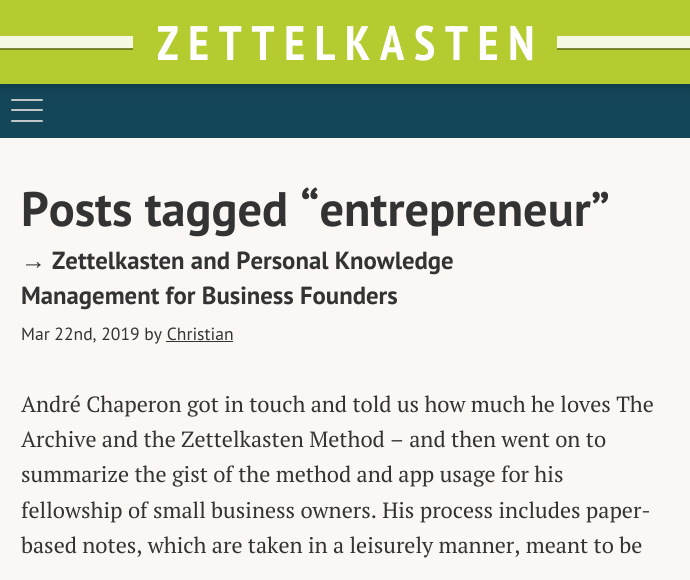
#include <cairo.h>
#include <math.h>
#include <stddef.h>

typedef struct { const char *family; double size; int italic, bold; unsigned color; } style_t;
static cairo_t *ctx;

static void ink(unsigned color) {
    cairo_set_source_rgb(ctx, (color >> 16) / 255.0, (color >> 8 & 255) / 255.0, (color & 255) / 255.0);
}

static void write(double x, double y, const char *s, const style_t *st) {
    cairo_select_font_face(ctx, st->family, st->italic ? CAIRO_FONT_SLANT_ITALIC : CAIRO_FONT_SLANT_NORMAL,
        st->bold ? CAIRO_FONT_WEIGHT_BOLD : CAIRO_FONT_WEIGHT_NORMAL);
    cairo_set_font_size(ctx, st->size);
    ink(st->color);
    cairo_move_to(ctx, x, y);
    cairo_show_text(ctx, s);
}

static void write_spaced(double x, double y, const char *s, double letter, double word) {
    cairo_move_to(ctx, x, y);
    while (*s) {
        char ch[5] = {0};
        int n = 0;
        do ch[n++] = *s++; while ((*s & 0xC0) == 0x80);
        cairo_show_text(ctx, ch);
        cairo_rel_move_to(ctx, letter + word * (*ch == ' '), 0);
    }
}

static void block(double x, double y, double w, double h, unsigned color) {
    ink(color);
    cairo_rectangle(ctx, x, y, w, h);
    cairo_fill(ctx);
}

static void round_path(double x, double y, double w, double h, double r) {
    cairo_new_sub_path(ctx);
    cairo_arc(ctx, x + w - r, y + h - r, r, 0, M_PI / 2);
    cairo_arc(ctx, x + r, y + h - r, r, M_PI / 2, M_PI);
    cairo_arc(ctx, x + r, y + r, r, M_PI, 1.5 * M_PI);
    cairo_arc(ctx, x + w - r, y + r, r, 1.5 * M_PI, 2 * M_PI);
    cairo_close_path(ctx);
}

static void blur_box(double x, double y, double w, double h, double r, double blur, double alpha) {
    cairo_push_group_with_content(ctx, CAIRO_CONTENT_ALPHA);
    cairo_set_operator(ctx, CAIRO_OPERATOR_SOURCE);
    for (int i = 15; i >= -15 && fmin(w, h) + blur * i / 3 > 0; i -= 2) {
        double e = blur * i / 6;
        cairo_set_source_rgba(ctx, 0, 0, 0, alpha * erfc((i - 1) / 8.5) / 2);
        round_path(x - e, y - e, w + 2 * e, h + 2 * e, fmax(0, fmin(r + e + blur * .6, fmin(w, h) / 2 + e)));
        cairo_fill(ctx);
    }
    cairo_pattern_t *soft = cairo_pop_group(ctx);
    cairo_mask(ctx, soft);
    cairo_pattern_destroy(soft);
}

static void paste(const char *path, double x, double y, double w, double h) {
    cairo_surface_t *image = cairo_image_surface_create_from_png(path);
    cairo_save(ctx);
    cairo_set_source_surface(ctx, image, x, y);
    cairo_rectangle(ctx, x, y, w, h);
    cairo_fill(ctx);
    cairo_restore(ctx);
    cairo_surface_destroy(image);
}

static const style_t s1 = {"PT Sans", 48.4, 0, 1, 0x333333};
static const style_t s2 = {"Liberation Sans", 24.75, 0, 1, 0x333333};
static const style_t s3 = {"PT Sans", 24.75, 0, 1, 0x333333};
static const style_t s4 = {"PT Sans", 17.6, 0, 0, 0x333333};
static const style_t s5 = {"PT Serif", 22, 0, 0, 0x333333};

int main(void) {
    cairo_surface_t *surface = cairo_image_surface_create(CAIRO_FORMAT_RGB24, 690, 580);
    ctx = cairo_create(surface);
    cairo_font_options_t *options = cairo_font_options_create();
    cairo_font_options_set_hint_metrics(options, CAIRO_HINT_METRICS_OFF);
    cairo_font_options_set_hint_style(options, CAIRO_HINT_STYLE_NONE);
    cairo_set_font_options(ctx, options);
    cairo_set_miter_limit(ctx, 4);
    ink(0xfaf7f4);
    cairo_paint(ctx);
    block(0, 84, 690, 54, 0x144659);
    ink(0xc0c5c7);
    round_path(11, 99, 32, 2, 1);
    cairo_fill(ctx);
    ink(0x000000);
    blur_box(0, 4, 690, 84, 0, 5.5, 0.2);
    block(0, 0, 690, 84, 0xb5cb30);
    paste("pic1.png", 0, 35, 690, 15);
    block(133, 35, 424, 15, 0xb5cb30);
    cairo_select_font_face(ctx, "PT Sans Narrow", CAIRO_FONT_SLANT_NORMAL, CAIRO_FONT_WEIGHT_BOLD);
    cairo_set_font_size(ctx, 48.4);
    ink(0xffffff);
    write_spaced(157, 60, "ZETTELKASTEN", 9.75, 0);
    ink(0xc0c5c7);
    round_path(11, 109, 32, 2, 1);
    cairo_fill(ctx);
    round_path(11, 120, 32, 2, 1);
    cairo_fill(ctx);
    write(21, 226, "Posts tagged “entrepreneur”", &s1);
    write(21, 269, "→", &s2);
    write(52, 269, "Zettelkasten and Personal Knowledge", &s3);
    write(21, 304, "Management for Business Founders", &s3);
    write(21, 340, "Mar 22nd, 2019 by Christian", &s4);
    block(166, 341, 67, 1, 0x333333);
    write(21, 412, "André Chaperon got in touch and told us how much he loves The", &s5);
    write(21, 447, "Archive and the Zettelkasten Method – and then went on to", &s5);
    write(21, 482, "summarize the gist of the method and app usage for his", &s5);
    write(21, 518, "fellowship of small business owners. His process includes paper-", &s5);
    write(21, 553, "based notes, which are taken in a leisurely manner, meant to be", &s5);
    cairo_surface_write_to_png(surface, "screenshot.png");
    cairo_font_options_destroy(options);
    cairo_destroy(ctx);
    cairo_surface_destroy(surface);
    return 0;
}
